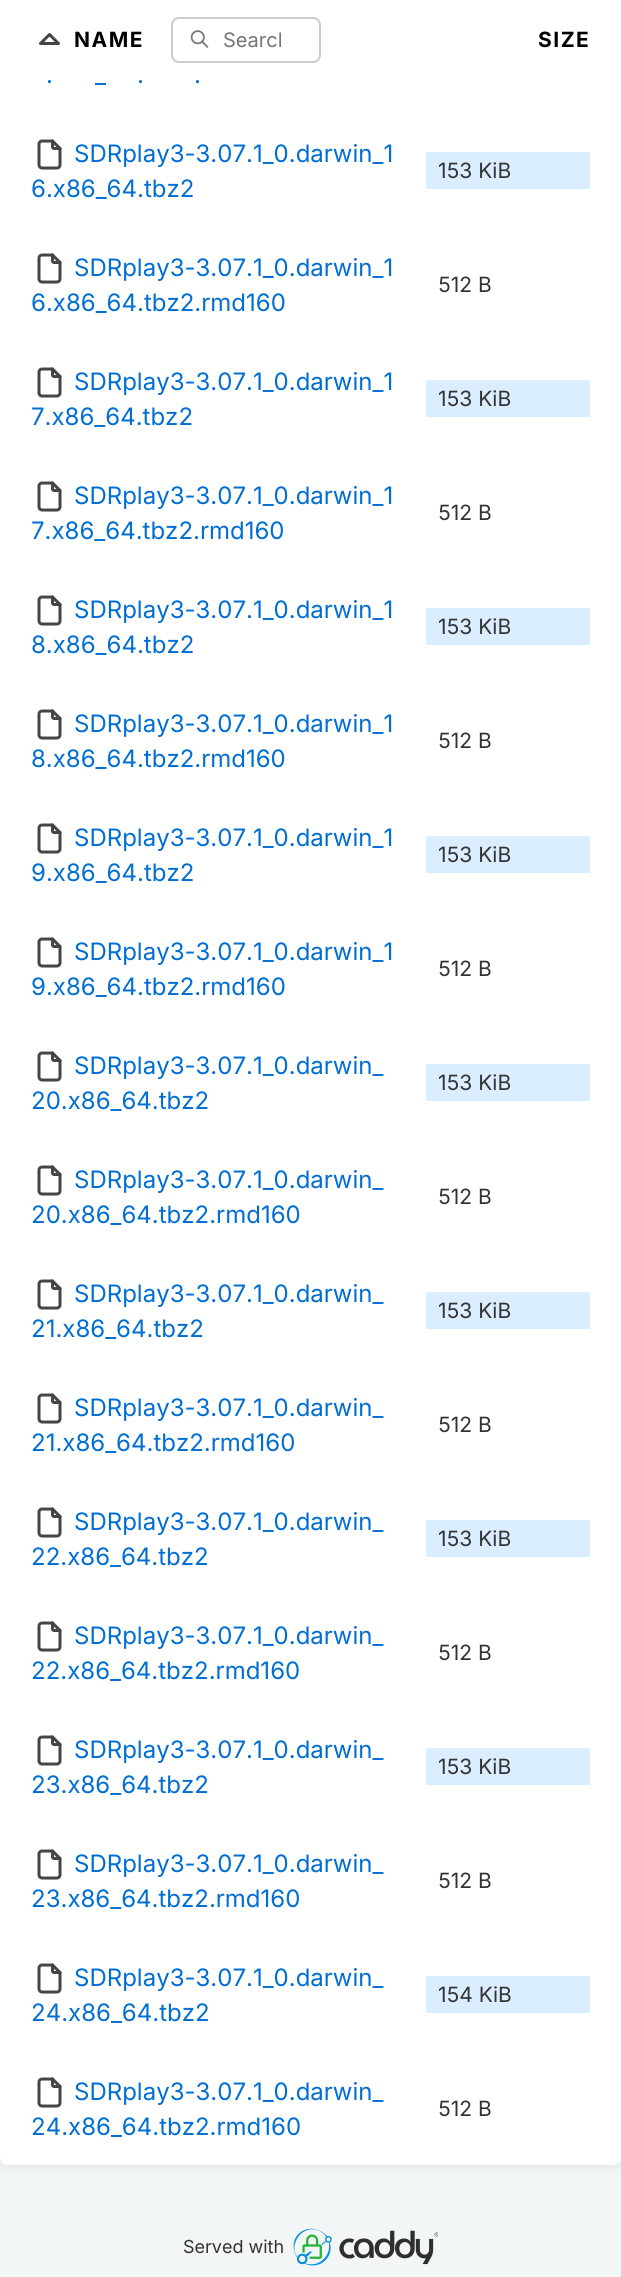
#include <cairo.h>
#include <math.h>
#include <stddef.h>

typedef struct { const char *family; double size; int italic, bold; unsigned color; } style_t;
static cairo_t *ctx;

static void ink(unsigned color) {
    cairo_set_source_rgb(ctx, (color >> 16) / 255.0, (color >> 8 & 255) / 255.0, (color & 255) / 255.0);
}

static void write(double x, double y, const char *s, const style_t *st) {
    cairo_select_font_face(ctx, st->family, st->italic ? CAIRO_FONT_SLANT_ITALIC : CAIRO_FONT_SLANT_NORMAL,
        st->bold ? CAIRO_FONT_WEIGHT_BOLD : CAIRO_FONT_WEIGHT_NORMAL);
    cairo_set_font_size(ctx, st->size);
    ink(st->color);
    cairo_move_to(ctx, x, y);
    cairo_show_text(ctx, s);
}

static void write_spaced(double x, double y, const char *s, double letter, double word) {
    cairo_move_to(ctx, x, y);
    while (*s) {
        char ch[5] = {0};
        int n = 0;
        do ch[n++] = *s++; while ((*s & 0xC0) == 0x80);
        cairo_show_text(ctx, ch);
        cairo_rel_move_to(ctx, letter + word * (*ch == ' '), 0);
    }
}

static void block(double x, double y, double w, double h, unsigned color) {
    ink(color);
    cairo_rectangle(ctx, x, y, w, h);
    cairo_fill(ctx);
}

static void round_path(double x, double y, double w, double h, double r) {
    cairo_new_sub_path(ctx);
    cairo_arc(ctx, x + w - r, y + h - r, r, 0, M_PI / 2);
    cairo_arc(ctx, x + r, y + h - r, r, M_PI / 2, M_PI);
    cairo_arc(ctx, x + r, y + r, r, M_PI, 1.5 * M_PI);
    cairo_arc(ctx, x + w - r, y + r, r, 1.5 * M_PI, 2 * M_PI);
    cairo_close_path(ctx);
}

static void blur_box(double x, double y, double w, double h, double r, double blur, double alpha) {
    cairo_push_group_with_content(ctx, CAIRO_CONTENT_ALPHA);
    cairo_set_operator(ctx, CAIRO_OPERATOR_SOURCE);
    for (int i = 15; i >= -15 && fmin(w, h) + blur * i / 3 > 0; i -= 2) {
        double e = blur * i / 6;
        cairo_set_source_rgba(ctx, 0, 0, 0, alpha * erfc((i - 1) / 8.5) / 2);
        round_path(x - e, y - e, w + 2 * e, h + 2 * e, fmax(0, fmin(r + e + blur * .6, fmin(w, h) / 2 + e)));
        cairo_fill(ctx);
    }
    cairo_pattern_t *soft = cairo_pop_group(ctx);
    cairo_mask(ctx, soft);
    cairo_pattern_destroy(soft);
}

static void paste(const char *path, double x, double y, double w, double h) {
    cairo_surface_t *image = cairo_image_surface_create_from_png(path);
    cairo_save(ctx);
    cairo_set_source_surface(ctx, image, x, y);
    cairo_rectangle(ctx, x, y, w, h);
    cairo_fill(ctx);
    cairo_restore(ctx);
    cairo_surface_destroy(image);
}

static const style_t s1 = {"Inter", 20, 0, 0, 0x757575};
static const style_t s2 = {"Inter", 24, 0, 0, 0x006ed3};
static const style_t s3 = {"Inter", 21, 0, 0, 0x333333};
static const style_t s4 = {"Inter", 18, 0, 0, 0x333333};

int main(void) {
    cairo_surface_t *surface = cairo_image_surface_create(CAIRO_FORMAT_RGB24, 621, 2277);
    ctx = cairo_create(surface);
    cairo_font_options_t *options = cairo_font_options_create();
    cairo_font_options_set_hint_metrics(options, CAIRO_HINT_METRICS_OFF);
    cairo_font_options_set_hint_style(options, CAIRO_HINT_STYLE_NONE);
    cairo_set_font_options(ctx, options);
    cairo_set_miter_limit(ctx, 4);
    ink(0xf3f6f7);
    cairo_paint(ctx);
    ink(0x000000);
    blur_box(-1, -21, 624, 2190, 9, 4, 0.05);
    ink(0xffffff);
    round_path(0, -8, 621, 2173, 8);
    cairo_fill(ctx);
    cairo_new_path(ctx);
    cairo_move_to(ctx, 58.5, 43.5);
    cairo_line_to(ctx, 49.5, 34.5);
    cairo_line_to(ctx, 40.5, 43.5);
    cairo_line_to(ctx, 58.5, 43.5);
    ink(0x454545);
    cairo_set_line_width(ctx, 3);
    cairo_set_line_cap(ctx, CAIRO_LINE_CAP_ROUND);
    cairo_set_line_join(ctx, CAIRO_LINE_JOIN_ROUND);
    cairo_stroke(ctx);
    cairo_select_font_face(ctx, "Inter", CAIRO_FONT_SLANT_NORMAL, CAIRO_FONT_WEIGHT_BOLD);
    cairo_set_font_size(ctx, 21);
    ink(0x000000);
    write_spaced(74, 47, "NAME", 1.5, 0);
    paste("pic1.png", 190, 30, 19, 18);
    round_path(172, 18, 148, 44, 7);
    ink(0xcccccc);
    cairo_set_line_width(ctx, 2);
    cairo_set_line_cap(ctx, CAIRO_LINE_CAP_BUTT);
    cairo_set_line_join(ctx, CAIRO_LINE_JOIN_MITER);
    cairo_stroke(ctx);
    cairo_save(ctx);
    cairo_rectangle(ctx, 222, 27, 59, 24);
    cairo_clip(ctx);
    write(223, 47, "Search", &s1);
    cairo_restore(ctx);
    ink(0x000000);
    write_spaced(538, 47, "SIZE", 1.5, 0);
    write(46, 83, ".", &s2);
    write(95, 83, "_", &s2);
    write(137, 83, ".", &s2);
    write(194, 83, ".", &s2);
    paste("pic2.png", 37, 139, 25, 31);
    write(74, 162, "SDRplay3-3.07.1_0.darwin_1", &s2);
    write(31, 197, "6.x86_64.tbz2", &s2);
    block(426, 152, 164, 37, 0xdbeeff);
    write(438, 178, "153 KiB", &s3);
    paste("pic2.png", 37, 253, 25, 31);
    write(74, 276, "SDRplay3-3.07.1_0.darwin_1", &s2);
    write(31, 311, "6.x86_64.tbz2.rmd160", &s2);
    write(438, 292, "512 B", &s3);
    paste("pic2.png", 37, 367, 25, 31);
    write(74, 390, "SDRplay3-3.07.1_0.darwin_1", &s2);
    write(31, 425, "7.x86_64.tbz2", &s2);
    block(426, 380, 164, 37, 0xdbeeff);
    write(438, 406, "153 KiB", &s3);
    paste("pic2.png", 37, 481, 25, 31);
    write(74, 504, "SDRplay3-3.07.1_0.darwin_1", &s2);
    write(31, 539, "7.x86_64.tbz2.rmd160", &s2);
    write(438, 520, "512 B", &s3);
    paste("pic2.png", 37, 595, 25, 31);
    write(74, 618, "SDRplay3-3.07.1_0.darwin_1", &s2);
    write(31, 653, "8.x86_64.tbz2", &s2);
    block(426, 608, 164, 37, 0xdbeeff);
    write(438, 634, "153 KiB", &s3);
    paste("pic2.png", 37, 709, 25, 31);
    write(74, 732, "SDRplay3-3.07.1_0.darwin_1", &s2);
    write(31, 767, "8.x86_64.tbz2.rmd160", &s2);
    write(438, 748, "512 B", &s3);
    paste("pic2.png", 37, 823, 25, 31);
    write(74, 846, "SDRplay3-3.07.1_0.darwin_1", &s2);
    write(31, 881, "9.x86_64.tbz2", &s2);
    block(426, 836, 164, 37, 0xdbeeff);
    write(438, 862, "153 KiB", &s3);
    paste("pic2.png", 37, 937, 25, 31);
    write(74, 960, "SDRplay3-3.07.1_0.darwin_1", &s2);
    write(31, 995, "9.x86_64.tbz2.rmd160", &s2);
    write(438, 976, "512 B", &s3);
    paste("pic2.png", 37, 1051, 25, 31);
    write(74, 1074, "SDRplay3-3.07.1_0.darwin_", &s2);
    write(31, 1109, "20.x86_64.tbz2", &s2);
    block(426, 1064, 164, 37, 0xdbeeff);
    write(438, 1090, "153 KiB", &s3);
    paste("pic2.png", 37, 1165, 25, 31);
    write(74, 1188, "SDRplay3-3.07.1_0.darwin_", &s2);
    write(31, 1223, "20.x86_64.tbz2.rmd160", &s2);
    write(438, 1204, "512 B", &s3);
    paste("pic2.png", 37, 1279, 25, 31);
    write(74, 1302, "SDRplay3-3.07.1_0.darwin_", &s2);
    write(31, 1337, "21.x86_64.tbz2", &s2);
    block(426, 1292, 164, 37, 0xdbeeff);
    write(438, 1318, "153 KiB", &s3);
    paste("pic2.png", 37, 1393, 25, 31);
    write(74, 1416, "SDRplay3-3.07.1_0.darwin_", &s2);
    write(31, 1451, "21.x86_64.tbz2.rmd160", &s2);
    write(438, 1432, "512 B", &s3);
    paste("pic2.png", 37, 1507, 25, 31);
    write(74, 1530, "SDRplay3-3.07.1_0.darwin_", &s2);
    write(31, 1565, "22.x86_64.tbz2", &s2);
    block(426, 1520, 164, 37, 0xdbeeff);
    write(438, 1546, "153 KiB", &s3);
    paste("pic2.png", 37, 1621, 25, 31);
    write(74, 1644, "SDRplay3-3.07.1_0.darwin_", &s2);
    write(31, 1679, "22.x86_64.tbz2.rmd160", &s2);
    write(438, 1660, "512 B", &s3);
    paste("pic2.png", 37, 1735, 25, 31);
    write(74, 1758, "SDRplay3-3.07.1_0.darwin_", &s2);
    write(31, 1793, "23.x86_64.tbz2", &s2);
    block(426, 1748, 164, 37, 0xdbeeff);
    write(438, 1774, "153 KiB", &s3);
    paste("pic2.png", 37, 1849, 25, 31);
    write(74, 1872, "SDRplay3-3.07.1_0.darwin_", &s2);
    write(31, 1907, "23.x86_64.tbz2.rmd160", &s2);
    write(438, 1888, "512 B", &s3);
    paste("pic2.png", 37, 1963, 25, 31);
    write(74, 1986, "SDRplay3-3.07.1_0.darwin_", &s2);
    write(31, 2021, "24.x86_64.tbz2", &s2);
    block(426, 1976, 164, 37, 0xdbeeff);
    write(438, 2002, "154 KiB", &s3);
    paste("pic2.png", 37, 2077, 25, 31);
    write(74, 2100, "SDRplay3-3.07.1_0.darwin_", &s2);
    write(31, 2135, "24.x86_64.tbz2.rmd160", &s2);
    write(438, 2116, "512 B", &s3);
    write(183, 2253, "Served with", &s4);
    paste("pic3.png", 293, 2228, 145, 38);
    cairo_surface_write_to_png(surface, "screenshot.png");
    cairo_font_options_destroy(options);
    cairo_destroy(ctx);
    cairo_surface_destroy(surface);
    return 0;
}
